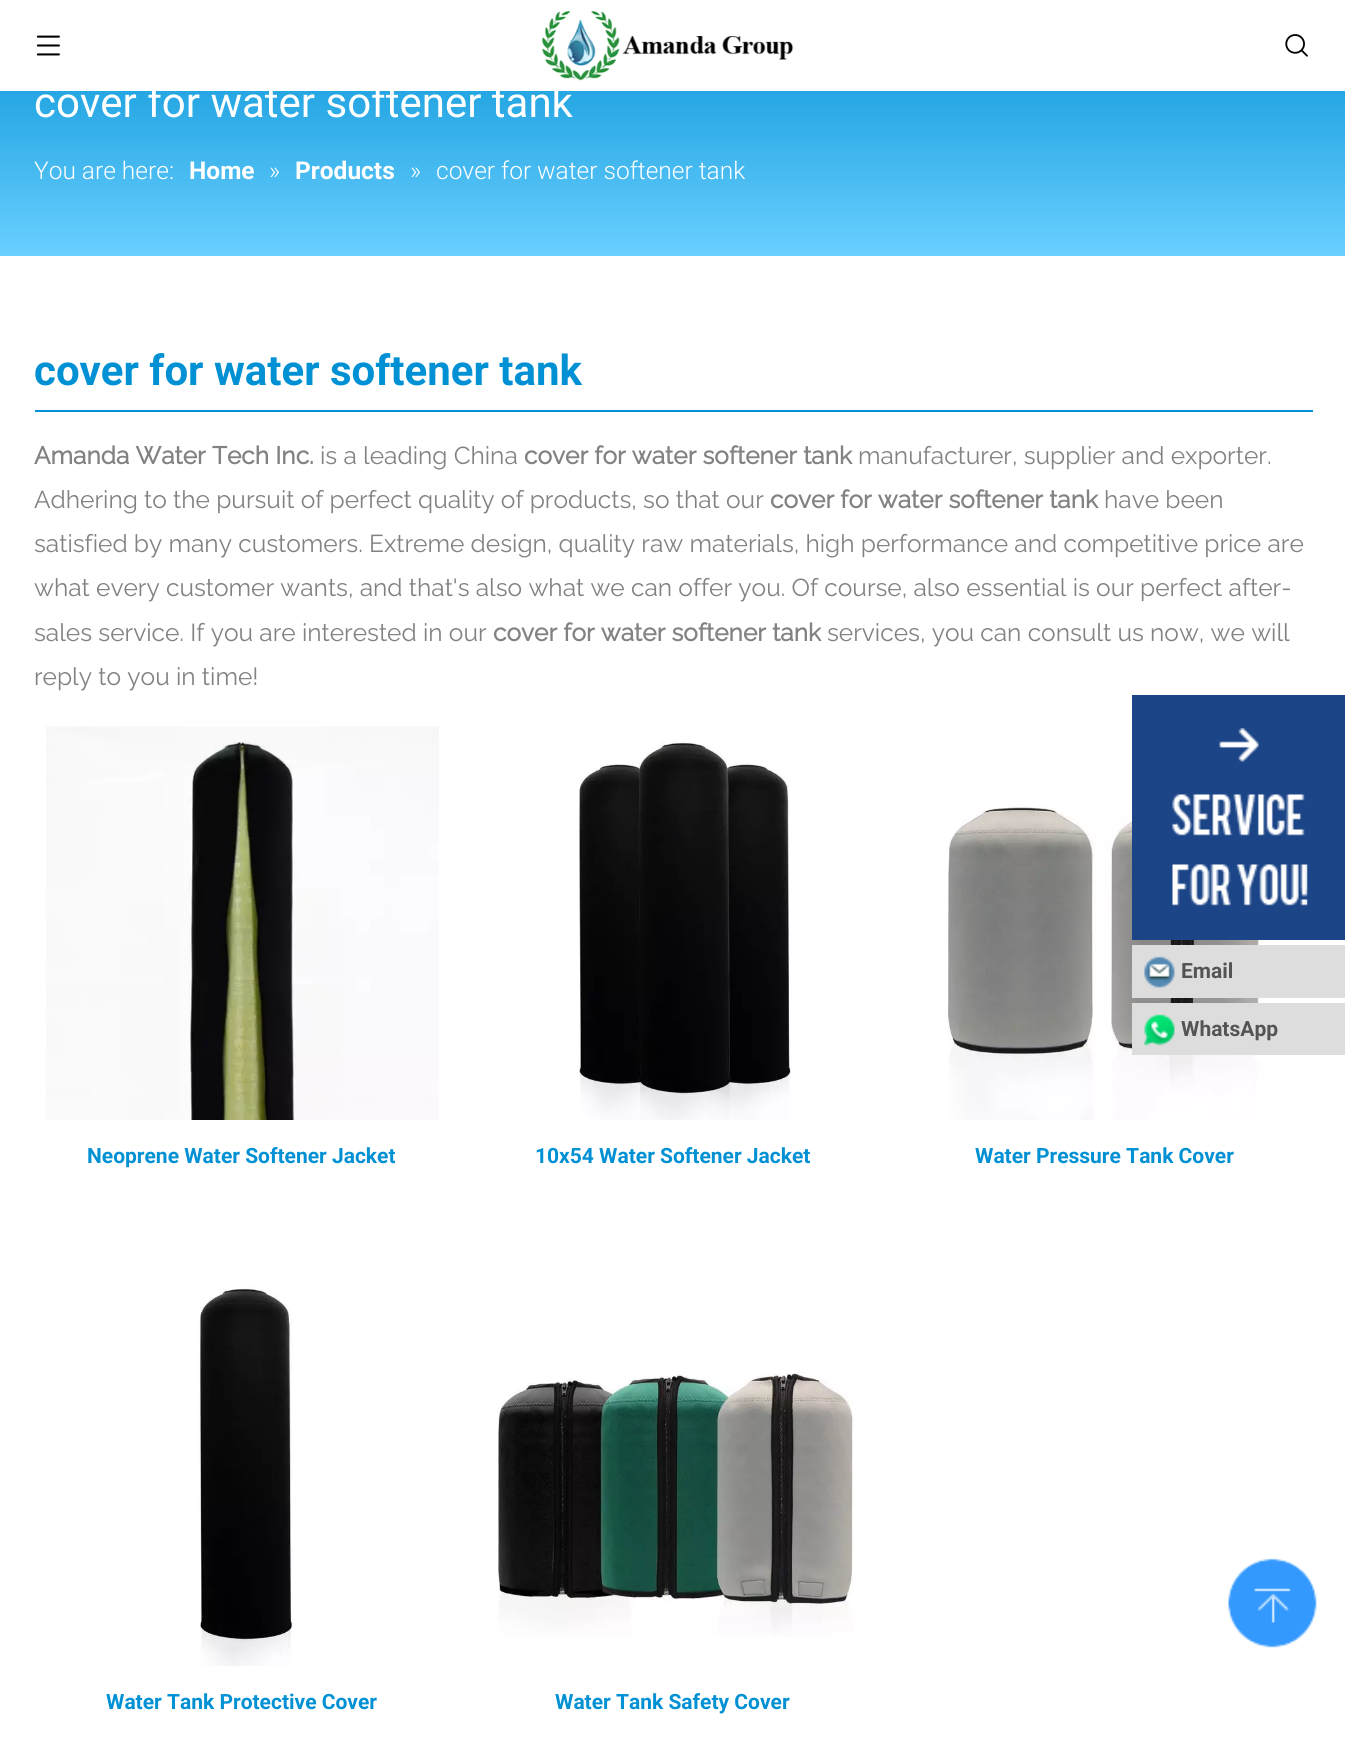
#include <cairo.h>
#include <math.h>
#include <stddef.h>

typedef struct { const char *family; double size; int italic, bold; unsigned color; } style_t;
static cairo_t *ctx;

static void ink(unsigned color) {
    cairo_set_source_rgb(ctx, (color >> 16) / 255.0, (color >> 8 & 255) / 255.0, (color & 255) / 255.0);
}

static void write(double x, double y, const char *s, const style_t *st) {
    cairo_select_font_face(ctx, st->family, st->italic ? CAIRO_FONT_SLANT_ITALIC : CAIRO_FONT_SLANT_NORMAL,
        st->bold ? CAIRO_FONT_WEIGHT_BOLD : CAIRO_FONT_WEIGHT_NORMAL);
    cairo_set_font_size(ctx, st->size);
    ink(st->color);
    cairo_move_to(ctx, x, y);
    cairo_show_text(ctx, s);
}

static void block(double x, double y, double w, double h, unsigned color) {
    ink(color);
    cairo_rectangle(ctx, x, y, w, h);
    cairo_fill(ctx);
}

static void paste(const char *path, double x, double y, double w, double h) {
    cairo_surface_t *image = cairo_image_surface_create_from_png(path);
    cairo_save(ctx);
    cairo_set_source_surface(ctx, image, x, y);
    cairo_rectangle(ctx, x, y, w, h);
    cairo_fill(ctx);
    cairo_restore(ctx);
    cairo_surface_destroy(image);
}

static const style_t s1 = {"Roboto", 42, 0, 0, 0xffffff};
static const style_t s2 = {"Roboto Light", 24.5, 0, 0, 0xffffff};
static const style_t s3 = {"Roboto", 24.5, 0, 1, 0xffffff};
static const style_t s4 = {"Roboto", 42, 0, 1, 0x0090d4};
static const style_t s5 = {"Raleway", 24.5, 0, 1, 0x828282};
static const style_t s6 = {"Raleway Thin", 24.5, 0, 0, 0x828282};
static const style_t s7 = {"Roboto", 21, 0, 1, 0x0090d4};
static const style_t s8 = {"Roboto", 21, 0, 1, 0x545454};

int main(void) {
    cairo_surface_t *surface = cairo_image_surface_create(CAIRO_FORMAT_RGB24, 1345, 1750);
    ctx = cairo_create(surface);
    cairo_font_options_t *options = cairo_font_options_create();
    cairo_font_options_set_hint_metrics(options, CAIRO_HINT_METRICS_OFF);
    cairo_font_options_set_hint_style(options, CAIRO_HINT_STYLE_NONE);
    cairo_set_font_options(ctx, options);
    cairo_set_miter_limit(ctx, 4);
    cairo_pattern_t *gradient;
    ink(0xffffff);
    cairo_paint(ctx);
    paste("pic1.png", 36, 35, 24, 21);
    paste("pic2.png", 541, 11, 253, 70);
    paste("pic3.png", 1285, 34, 23, 23);
    gradient = cairo_pattern_create_linear(673, 0, 673, 256);
    cairo_pattern_add_color_stop_rgba(gradient, 0, 0, 0.565, 0.831, 1);
    cairo_pattern_add_color_stop_rgba(gradient, 1, 0.412, 0.812, 1, 1);
    cairo_set_source(ctx, gradient);
    cairo_pattern_destroy(gradient);
    cairo_rectangle(ctx, 0, 91, 1345, 165);
    cairo_fill(ctx);
    write(34, 117, "cover for water softener tank", &s1);
    write(34, 179, "You are here:", &s2);
    write(189, 179, "Home", &s3);
    write(269, 179, "»", &s2);
    write(295, 179, "Products", &s3);
    write(410, 179, "»", &s2);
    write(436, 179, "cover for water softener tank", &s2);
    block(35, 410, 1278, 2, 0x0090d4);
    write(34, 385, "cover for water softener tank", &s4);
    write(34, 464, "Amanda Water Tech Inc.", &s5);
    write(320, 464, "is a leading China", &s6);
    write(524, 464, "cover for water softener tank", &s5);
    write(858, 464, "manufacturer, supplier and exporter.", &s6);
    write(34, 508, "Adhering to the pursuit of perfect quality of products, so that our", &s6);
    write(770, 508, "cover for water softener tank", &s5);
    write(1104, 508, "have been", &s6);
    write(34, 552, "satisfied by many customers. Extreme design, quality raw materials, high performance and competitive price are", &s6);
    write(34, 596, "what every customer wants, and that's also what we can offer you. Of course, also essential is our perfect after-", &s6);
    write(34, 641, "sales service. If you are interested in our", &s6);
    write(493, 641, "cover for water softener tank", &s5);
    write(827, 641, "services, you can consult us now, we will", &s6);
    write(34, 685, "reply to you in time!", &s6);
    paste("pic4.png", 46, 726, 393, 394);
    write(87, 1163, "Neoprene Water Softener Jacket", &s7);
    paste("pic5.png", 579, 741, 212, 379);
    write(535, 1163, "10x54 Water Softener Jacket", &s7);
    paste("pic6.png", 948, 800, 315, 320);
    write(975, 1163, "Water Pressure Tank Cover", &s7);
    paste("pic7.png", 198, 1287, 96, 379);
    write(106, 1709, "Water Tank Protective Cover", &s7);
    paste("pic8.png", 497, 1372, 357, 265);
    write(555, 1709, "Water Tank Safety Cover", &s7);
    block(1132, 695, 213, 245, 0x1c4587);
    paste("pic9.png", 1172, 728, 136, 178);
    block(1132, 945, 213, 53, 0xdddddd);
    paste("pic10.png", 1144, 956, 31, 32);
    write(1181, 978, "Email", &s8);
    block(1132, 1003, 213, 52, 0xdddddd);
    paste("pic11.png", 1144, 1014, 31, 32);
    write(1181, 1036, "WhatsApp", &s8);
    paste("pic12.png", 1228, 1558, 89, 90);
    cairo_surface_write_to_png(surface, "screenshot.png");
    cairo_font_options_destroy(options);
    cairo_destroy(ctx);
    cairo_surface_destroy(surface);
    return 0;
}
